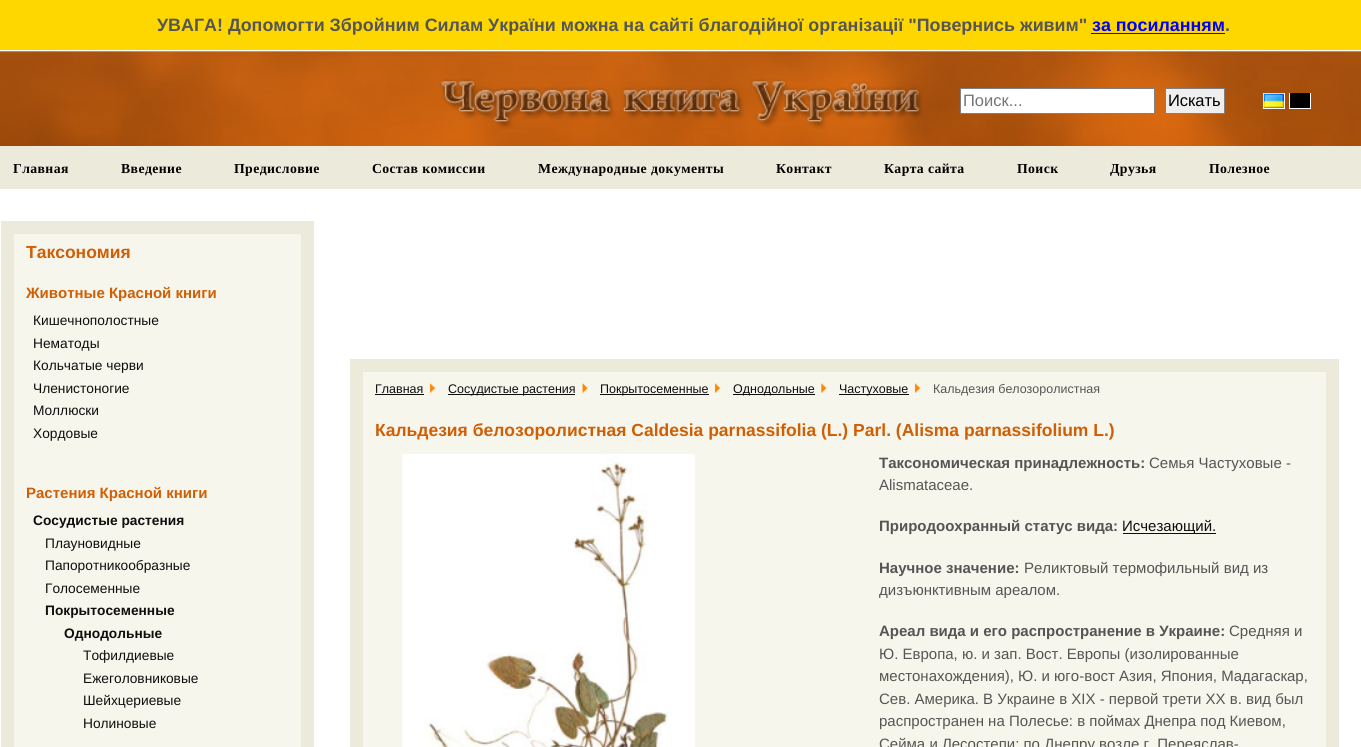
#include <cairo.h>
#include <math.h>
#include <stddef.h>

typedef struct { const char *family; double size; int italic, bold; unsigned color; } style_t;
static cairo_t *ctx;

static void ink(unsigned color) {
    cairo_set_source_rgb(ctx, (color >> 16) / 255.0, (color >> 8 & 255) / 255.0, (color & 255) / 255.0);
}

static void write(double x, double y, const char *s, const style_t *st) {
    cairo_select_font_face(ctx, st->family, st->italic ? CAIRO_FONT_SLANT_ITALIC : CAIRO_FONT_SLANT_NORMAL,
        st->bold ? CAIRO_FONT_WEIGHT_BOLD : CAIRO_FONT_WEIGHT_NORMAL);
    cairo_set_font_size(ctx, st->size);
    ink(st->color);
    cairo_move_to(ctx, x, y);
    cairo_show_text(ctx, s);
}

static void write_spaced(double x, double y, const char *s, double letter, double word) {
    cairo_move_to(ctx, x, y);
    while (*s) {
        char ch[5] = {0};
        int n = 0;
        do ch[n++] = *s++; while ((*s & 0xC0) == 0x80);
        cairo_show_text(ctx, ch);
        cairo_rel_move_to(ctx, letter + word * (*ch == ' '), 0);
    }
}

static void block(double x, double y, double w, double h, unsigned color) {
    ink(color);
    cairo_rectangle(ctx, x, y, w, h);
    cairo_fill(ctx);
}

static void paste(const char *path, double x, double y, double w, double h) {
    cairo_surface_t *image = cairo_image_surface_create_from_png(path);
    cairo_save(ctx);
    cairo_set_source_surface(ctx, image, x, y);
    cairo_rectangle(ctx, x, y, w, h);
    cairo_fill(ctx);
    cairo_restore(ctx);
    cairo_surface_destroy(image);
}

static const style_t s1 = {"Liberation Sans", 17.88, 0, 1, 0x555555};
static const style_t s2 = {"Liberation Sans", 17.88, 0, 1, 0x0000ff};
static const style_t s3 = {"Liberation Sans", 16.5, 0, 0, 0x757575};
static const style_t s4 = {"Liberation Sans", 16.5, 0, 0, 0x000000};
static const style_t s5 = {"Liberation Sans", 17.5, 0, 1, 0xd05e05};
static const style_t s6 = {"Liberation Sans", 15, 0, 1, 0xd05e05};
static const style_t s7 = {"Liberation Sans", 13.75, 0, 0, 0x0e0e0e};
static const style_t s8 = {"Liberation Sans", 13.75, 0, 1, 0x0e0e0e};
static const style_t s9 = {"Liberation Sans", 12.5, 0, 0, 0x0e0e0e};
static const style_t s10 = {"Liberation Sans", 12.5, 0, 0, 0x555555};
static const style_t s11 = {"Liberation Sans", 15, 0, 1, 0x555555};
static const style_t s12 = {"Liberation Sans", 15, 0, 0, 0x555555};
static const style_t s13 = {"Liberation Sans", 15, 0, 0, 0x0e0e0e};

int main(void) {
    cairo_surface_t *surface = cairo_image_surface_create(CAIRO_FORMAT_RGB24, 1361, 747);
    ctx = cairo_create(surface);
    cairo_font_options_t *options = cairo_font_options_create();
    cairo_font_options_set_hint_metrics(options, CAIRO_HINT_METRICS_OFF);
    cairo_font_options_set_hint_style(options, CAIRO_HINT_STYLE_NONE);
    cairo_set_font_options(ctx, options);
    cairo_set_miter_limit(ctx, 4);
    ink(0xffffff);
    cairo_paint(ctx);
    block(0, 0, 1361, 50, 0xffd700);
    write(157, 31, "УВАГА! Допомогти Збройним Силам України можна на сайті благодійної організації \"Повернись живим\"", &s1);
    write(1092, 31, "за посиланням", &s2);
    block(1091, 33, 134, 1, 0x0000ff);
    write(1225, 31, ".", &s1);
    paste("pic1.png", 0, 50, 1361, 96);
    paste("pic2.png", 440, 78, 483, 51);
    ink(0xffffff);
    cairo_rectangle(ctx, 960.5, 88.5, 194, 25);
    cairo_fill_preserve(ctx);
    ink(0x808080);
    cairo_set_line_width(ctx, 1);
    cairo_stroke(ctx);
    write(963, 106, "Поиск...", &s3);
    ink(0xefefef);
    cairo_rectangle(ctx, 1165.5, 88.5, 59, 25);
    cairo_fill_preserve(ctx);
    ink(0x808080);
    cairo_stroke(ctx);
    write(1168, 106, "Искать", &s4);
    cairo_rectangle(ctx, 1263.5, 93.5, 21, 15);
    ink(0xffffff);
    cairo_stroke(ctx);
    paste("pic3.png", 1263, 93, 21, 15);
    cairo_rectangle(ctx, 1289.5, 93.5, 21, 15);
    cairo_stroke(ctx);
    block(1290, 93, 20, 15, 0x000000);
    block(0, 146, 1361, 43, 0xeceadb);
    cairo_select_font_face(ctx, "Liberation Serif", CAIRO_FONT_SLANT_NORMAL, CAIRO_FONT_WEIGHT_BOLD);
    cairo_set_font_size(ctx, 13.75);
    ink(0x000000);
    write_spaced(13, 173, "Главная", 0.4, 0);
    write_spaced(121, 173, "Введение", 0.4, 0);
    write_spaced(234, 173, "Предисловие", 0.4, 0);
    write_spaced(372, 173, "Состав комиссии", 0.4, 0);
    write_spaced(538, 173, "Международные документы", 0.4, 0);
    write_spaced(776, 173, "Контакт", 0.4, 0);
    write_spaced(884, 173, "Карта сайта", 0.4, 0);
    write_spaced(1017, 173, "Поиск", 0.4, 0);
    write_spaced(1110, 173, "Друзья", 0.4, 0);
    write_spaced(1209, 173, "Полезное", 0.4, 0);
    ink(0xf7f6ec);
    cairo_rectangle(ctx, 7.5, 227.5, 300, 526);
    cairo_fill_preserve(ctx);
    ink(0xeceadb);
    cairo_set_line_width(ctx, 13);
    cairo_stroke(ctx);
    write(26, 258, "Таксономия", &s5);
    write(26, 298, "Животные Красной книги", &s6);
    write(33, 325, "Кишечнополостные", &s7);
    write(33, 348, "Нематоды", &s7);
    write(33, 370, "Кольчатые черви", &s7);
    write(33, 393, "Членистоногие", &s7);
    write(33, 415, "Моллюски", &s7);
    write(33, 438, "Хордовые", &s7);
    write(26, 498, "Растения Красной книги", &s6);
    write(33, 525, "Сосудистые растения", &s8);
    write(45, 548, "Плауновидные", &s7);
    write(45, 570, "Папоротникообразные", &s7);
    write(45, 593, "Голосеменные", &s7);
    write(45, 615, "Покрытосеменные", &s8);
    write(64, 638, "Однодольные", &s8);
    write(83, 660, "Тофилдиевые", &s7);
    write(83, 683, "Ежеголовниковые", &s7);
    write(83, 705, "Шейхцериевые", &s7);
    write(83, 728, "Нолиновые", &s7);
    ink(0xf7f6ec);
    cairo_rectangle(ctx, 356.5, 365.5, 976, 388);
    cairo_fill_preserve(ctx);
    ink(0xeceadb);
    cairo_stroke(ctx);
    write(375, 393, "Главная", &s9);
    block(375, 394, 49, 1, 0x0e0e0e);
    paste("pic4.png", 429, 383, 7, 10);
    block(448, 394, 127, 1, 0x0e0e0e);
    write(448, 393, "Сосудистые растения", &s9);
    paste("pic5.png", 582, 383, 6, 10);
    block(600, 394, 109, 1, 0x0e0e0e);
    write(600, 393, "Покрытосеменные", &s9);
    paste("pic4.png", 714, 383, 7, 10);
    block(733, 394, 82, 1, 0x0e0e0e);
    write(733, 393, "Однодольные", &s9);
    paste("pic6.png", 821, 383, 6, 10);
    block(839, 394, 70, 1, 0x0e0e0e);
    write(839, 393, "Частуховые", &s9);
    paste("pic4.png", 914, 383, 7, 10);
    write(933, 393, "Кальдезия белозоролистная", &s10);
    write(375, 436, "Кальдезия белозоролистная Caldesia parnassifolia (L.) Parl. (Alisma parnassifolium L.)", &s5);
    paste("pic7.png", 402, 454, 293, 293);
    write(879, 468, "Таксономическая принадлежность:", &s11);
    write(1149, 468, "Семья Частуховые -", &s12);
    write(879, 490, "Alismataceae.", &s12);
    write(879, 531, "Природоохранный статус вида:", &s11);
    block(1123, 533, 93, 1, 0x0e0e0e);
    write(1122, 531, "Исчезающий.", &s13);
    write(879, 573, "Научное значение:", &s11);
    write(1024, 573, "Реликтовый термофильный вид из", &s12);
    write(879, 595, "дизъюнктивным ареалом.", &s12);
    write(879, 636, "Ареал вида и его распространение в Украине:", &s11);
    write(1229, 636, "Средняя и", &s12);
    write(879, 659, "Ю. Европа, ю. и зап. Вост. Европы (изолированные", &s12);
    write(879, 681, "местонахождения), Ю. и юго-вост Азия, Япония, Мадагаскар,", &s12);
    write(879, 704, "Сев. Америка. В Украине в XIX - первой трети ХХ в. вид был", &s12);
    write(879, 726, "распространен на Полесье: в поймах Днепра под Киевом,", &s12);
    write(879, 749, "Сейма и Лесостепи: по Днепру возле г. Переяслав-", &s12);
    cairo_surface_write_to_png(surface, "screenshot.png");
    cairo_font_options_destroy(options);
    cairo_destroy(ctx);
    cairo_surface_destroy(surface);
    return 0;
}
